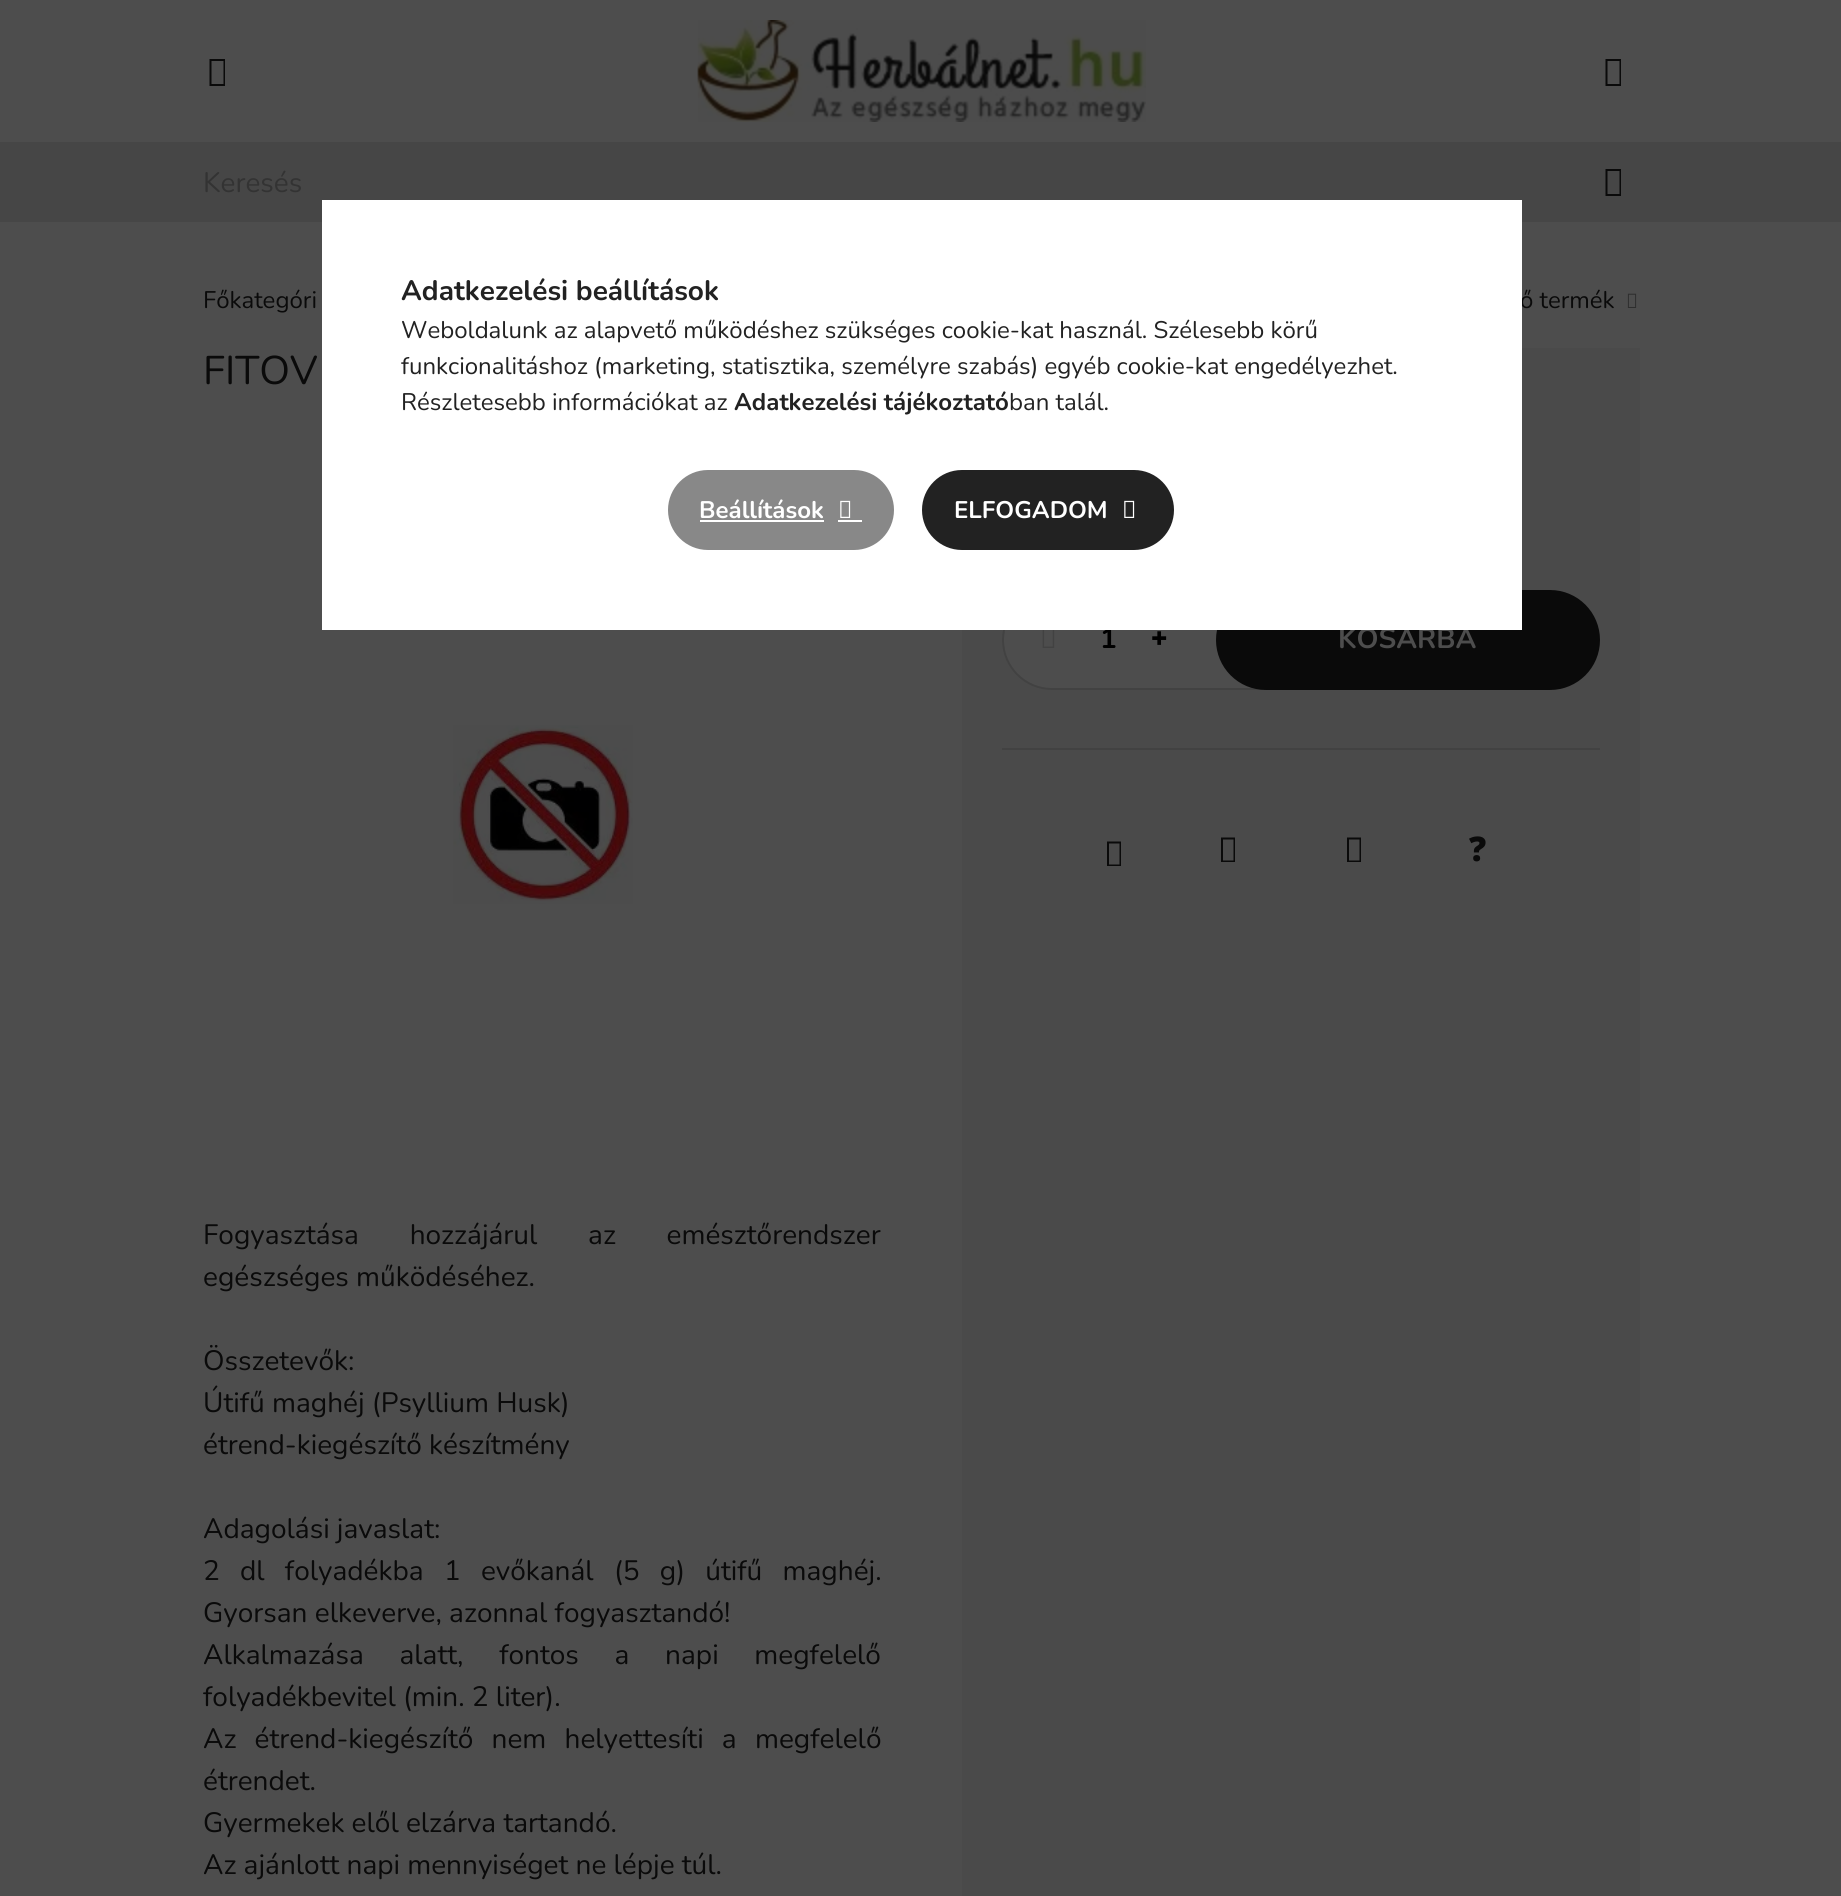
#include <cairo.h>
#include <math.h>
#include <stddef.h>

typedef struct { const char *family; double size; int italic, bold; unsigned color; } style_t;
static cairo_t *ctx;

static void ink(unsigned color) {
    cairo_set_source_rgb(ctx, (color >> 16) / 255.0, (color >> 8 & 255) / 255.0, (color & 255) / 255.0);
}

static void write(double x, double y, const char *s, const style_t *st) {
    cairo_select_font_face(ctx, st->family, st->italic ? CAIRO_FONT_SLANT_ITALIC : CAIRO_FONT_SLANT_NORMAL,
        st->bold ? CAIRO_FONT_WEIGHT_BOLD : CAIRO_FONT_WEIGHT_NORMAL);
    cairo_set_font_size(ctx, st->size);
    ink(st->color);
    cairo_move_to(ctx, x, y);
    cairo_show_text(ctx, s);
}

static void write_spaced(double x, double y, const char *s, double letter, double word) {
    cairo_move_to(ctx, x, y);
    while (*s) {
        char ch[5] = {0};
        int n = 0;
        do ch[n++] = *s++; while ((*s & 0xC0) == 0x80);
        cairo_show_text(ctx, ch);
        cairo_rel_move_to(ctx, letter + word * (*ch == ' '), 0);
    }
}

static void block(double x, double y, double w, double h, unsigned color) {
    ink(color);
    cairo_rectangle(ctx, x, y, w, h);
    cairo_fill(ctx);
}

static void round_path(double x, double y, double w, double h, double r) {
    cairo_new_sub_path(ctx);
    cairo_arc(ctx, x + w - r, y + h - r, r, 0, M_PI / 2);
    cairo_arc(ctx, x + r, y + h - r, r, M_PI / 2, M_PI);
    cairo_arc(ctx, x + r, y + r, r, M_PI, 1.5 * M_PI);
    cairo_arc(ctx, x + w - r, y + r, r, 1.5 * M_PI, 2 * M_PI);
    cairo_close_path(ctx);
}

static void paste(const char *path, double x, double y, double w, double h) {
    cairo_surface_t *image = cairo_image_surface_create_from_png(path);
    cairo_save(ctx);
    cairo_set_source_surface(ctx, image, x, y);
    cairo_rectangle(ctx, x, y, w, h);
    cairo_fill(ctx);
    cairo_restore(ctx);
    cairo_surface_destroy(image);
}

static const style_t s1 = {"Nunito", 28, 0, 0, 0x333333};
static const style_t s2 = {"Nunito", 24, 0, 0, 0x0a0a0a};
static const style_t s3 = {"Nunito", 40, 0, 0, 0x0a0a0a};
static const style_t s4 = {"Nunito", 28, 0, 0, 0x0a0a0a};
static const style_t s5 = {"Nunito", 28, 0, 1, 0x000000};
static const style_t s6 = {"Noto Sans Black", 28, 0, 0, 0x000000};
static const style_t s7 = {"Nunito", 28, 0, 1, 0x4d4d4d};
static const style_t s8 = {"Noto Sans Black", 34, 0, 0, 0x0a0a0a};
static const style_t s9 = {"Nunito", 28, 0, 1, 0x222222};
static const style_t s10 = {"Nunito", 24, 0, 0, 0x222222};
static const style_t s11 = {"Nunito", 24, 0, 1, 0x222222};
static const style_t s12 = {"Nunito", 24, 0, 1, 0xffffff};

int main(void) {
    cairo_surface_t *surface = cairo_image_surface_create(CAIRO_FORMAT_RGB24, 1841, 1896);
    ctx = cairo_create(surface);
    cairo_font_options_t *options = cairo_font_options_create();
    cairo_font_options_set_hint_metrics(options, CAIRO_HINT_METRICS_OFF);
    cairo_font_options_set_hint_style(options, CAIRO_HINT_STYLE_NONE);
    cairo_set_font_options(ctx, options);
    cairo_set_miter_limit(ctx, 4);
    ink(0x4d4d4d);
    cairo_paint(ctx);
    ink(0x0a0a0a);
    cairo_new_path(ctx);
    cairo_move_to(ctx, 209.5, 86);
    cairo_line_to(ctx, 209.5, 59);
    cairo_line_to(ctx, 225, 59);
    cairo_line_to(ctx, 225, 86);
    cairo_close_path(ctx);
    cairo_move_to(ctx, 211.5, 84);
    cairo_line_to(ctx, 223.5, 84);
    cairo_line_to(ctx, 223.5, 61);
    cairo_line_to(ctx, 211.5, 61);
    cairo_close_path(ctx);
    cairo_fill(ctx);
    paste("pic1.png", 697, 20, 449, 102);
    cairo_new_path(ctx);
    cairo_move_to(ctx, 1605.5, 86);
    cairo_line_to(ctx, 1605.5, 59);
    cairo_line_to(ctx, 1621, 59);
    cairo_line_to(ctx, 1621, 86);
    cairo_close_path(ctx);
    cairo_move_to(ctx, 1607.5, 84);
    cairo_line_to(ctx, 1619.5, 84);
    cairo_line_to(ctx, 1619.5, 61);
    cairo_line_to(ctx, 1607.5, 61);
    cairo_close_path(ctx);
    cairo_fill(ctx);
    block(0, 142, 1841, 80, 0x464646);
    write(203, 192, "Keresés", &s1);
    ink(0x0a0a0a);
    cairo_new_path(ctx);
    cairo_move_to(ctx, 1605.5, 196);
    cairo_line_to(ctx, 1605.5, 169);
    cairo_line_to(ctx, 1621, 169);
    cairo_line_to(ctx, 1621, 196);
    cairo_close_path(ctx);
    cairo_move_to(ctx, 1607.5, 194);
    cairo_line_to(ctx, 1619.5, 194);
    cairo_line_to(ctx, 1619.5, 171);
    cairo_line_to(ctx, 1607.5, 171);
    cairo_close_path(ctx);
    cairo_fill(ctx);
    write(203, 308, "Főkategóri", &s2);
    write(1520, 308, "ő termék", &s2);
    paste("pic2.png", 1627, 293, 10, 15);
    write(203, 384, "FITOV", &s3);
    paste("pic3.png", 453, 725, 180, 179);
    cairo_set_font_size(ctx, 28);
    write_spaced(203, 1244, "Fogyasztása hozzájárul az emésztőrendszer", 0, 43.5);
    write(203, 1286, "egészséges működéséhez.", &s4);
    write(203, 1370, "Összetevők:", &s4);
    write(203, 1412, "Útifű maghéj (Psyllium Husk)", &s4);
    write(203, 1454, "étrend-kiegészítő készítmény", &s4);
    write(203, 1538, "Adagolási javaslat:", &s4);
    write_spaced(203, 1580, "2 dl folyadékba 1 evőkanál (5 g) útifű maghéj.", 0, 13);
    write(203, 1622, "Gyorsan elkeverve, azonnal fogyasztandó!", &s4);
    write_spaced(203, 1664, "Alkalmazása alatt, fontos a napi megfelelő", 0, 28.5);
    write(203, 1706, "folyadékbevitel (min. 2 liter).", &s4);
    write_spaced(203, 1748, "Az étrend-kiegészítő nem helyettesíti a megfelelő", 0, 11);
    write(203, 1790, "étrendet.", &s4);
    write(203, 1832, "Gyermekek elől elzárva tartandó.", &s4);
    write(203, 1874, "Az ajánlott napi mennyiséget ne lépje túl.", &s4);
    block(962, 348, 678, 1548, 0x4a4a4a);
    ink(0x4d4d4d);
    cairo_new_path(ctx);
    cairo_move_to(ctx, 1052, 591);
    cairo_line_to(ctx, 1275, 591);
    cairo_line_to(ctx, 1275, 689);
    cairo_line_to(ctx, 1052, 689);
    cairo_curve_to(ctx, 1025, 689, 1003, 667, 1003, 640);
    cairo_curve_to(ctx, 1003, 613, 1025, 591, 1052, 591);
    cairo_close_path(ctx);
    cairo_fill_preserve(ctx);
    ink(0x424242);
    cairo_stroke(ctx);
    paste("pic4.png", 1042, 630, 13, 18);
    write(1100, 648, "1", &s5);
    write(1151, 648, "+", &s6);
    ink(0x0a0a0a);
    round_path(1217, 591, 382, 98, 49);
    cairo_fill_preserve(ctx);
    cairo_stroke(ctx);
    write(1338, 648, "KOSÁRBA", &s7);
    block(1002, 748, 598, 2, 0x424242);
    ink(0x0a0a0a);
    cairo_new_path(ctx);
    cairo_move_to(ctx, 1107, 866);
    cairo_line_to(ctx, 1107, 841.5);
    cairo_line_to(ctx, 1121, 841.5);
    cairo_line_to(ctx, 1121, 866);
    cairo_close_path(ctx);
    cairo_move_to(ctx, 1109, 864.5);
    cairo_line_to(ctx, 1119.5, 864.5);
    cairo_line_to(ctx, 1119.5, 843.5);
    cairo_line_to(ctx, 1109, 843.5);
    cairo_close_path(ctx);
    cairo_fill(ctx);
    cairo_new_path(ctx);
    cairo_move_to(ctx, 1221, 862);
    cairo_line_to(ctx, 1221, 837.5);
    cairo_line_to(ctx, 1235, 837.5);
    cairo_line_to(ctx, 1235, 862);
    cairo_close_path(ctx);
    cairo_move_to(ctx, 1223, 860.5);
    cairo_line_to(ctx, 1233.5, 860.5);
    cairo_line_to(ctx, 1233.5, 839.5);
    cairo_line_to(ctx, 1223, 839.5);
    cairo_close_path(ctx);
    cairo_fill(ctx);
    cairo_new_path(ctx);
    cairo_move_to(ctx, 1347, 862);
    cairo_line_to(ctx, 1347, 837.5);
    cairo_line_to(ctx, 1361, 837.5);
    cairo_line_to(ctx, 1361, 862);
    cairo_close_path(ctx);
    cairo_move_to(ctx, 1349, 860.5);
    cairo_line_to(ctx, 1359.5, 860.5);
    cairo_line_to(ctx, 1359.5, 839.5);
    cairo_line_to(ctx, 1349, 839.5);
    cairo_close_path(ctx);
    cairo_fill(ctx);
    write(1469, 861, "?", &s8);
    block(322, 200, 1200, 430, 0xffffff);
    write(401, 300, "Adatkezelési beállítások", &s9);
    write(401, 338, "Weboldalunk az alapvető működéshez szükséges cookie-kat használ. Szélesebb körű", &s10);
    write(401, 374, "funkcionalitáshoz (marketing, statisztika, személyre szabás) egyéb cookie-kat engedélyezhet.", &s10);
    write(401, 410, "Részletesebb információkat az", &s10);
    write(734, 410, "Adatkezelési tájékoztató", &s11);
    write(1009, 410, "ban talál.", &s10);
    ink(0x888888);
    round_path(669, 471, 224, 78, 39);
    cairo_fill_preserve(ctx);
    cairo_stroke(ctx);
    write(699, 518, "Beállítások", &s12);
    block(700, 520, 124, 2, 0xffffff);
    paste("pic5.png", 840, 500, 11, 18);
    block(838, 520, 24, 2, 0xffffff);
    ink(0x222222);
    round_path(923, 471, 250, 78, 39);
    cairo_fill_preserve(ctx);
    cairo_stroke(ctx);
    write(954, 518, "ELFOGADOM", &s12);
    paste("pic6.png", 1124, 500, 11, 18);
    cairo_surface_write_to_png(surface, "screenshot.png");
    cairo_font_options_destroy(options);
    cairo_destroy(ctx);
    cairo_surface_destroy(surface);
    return 0;
}
